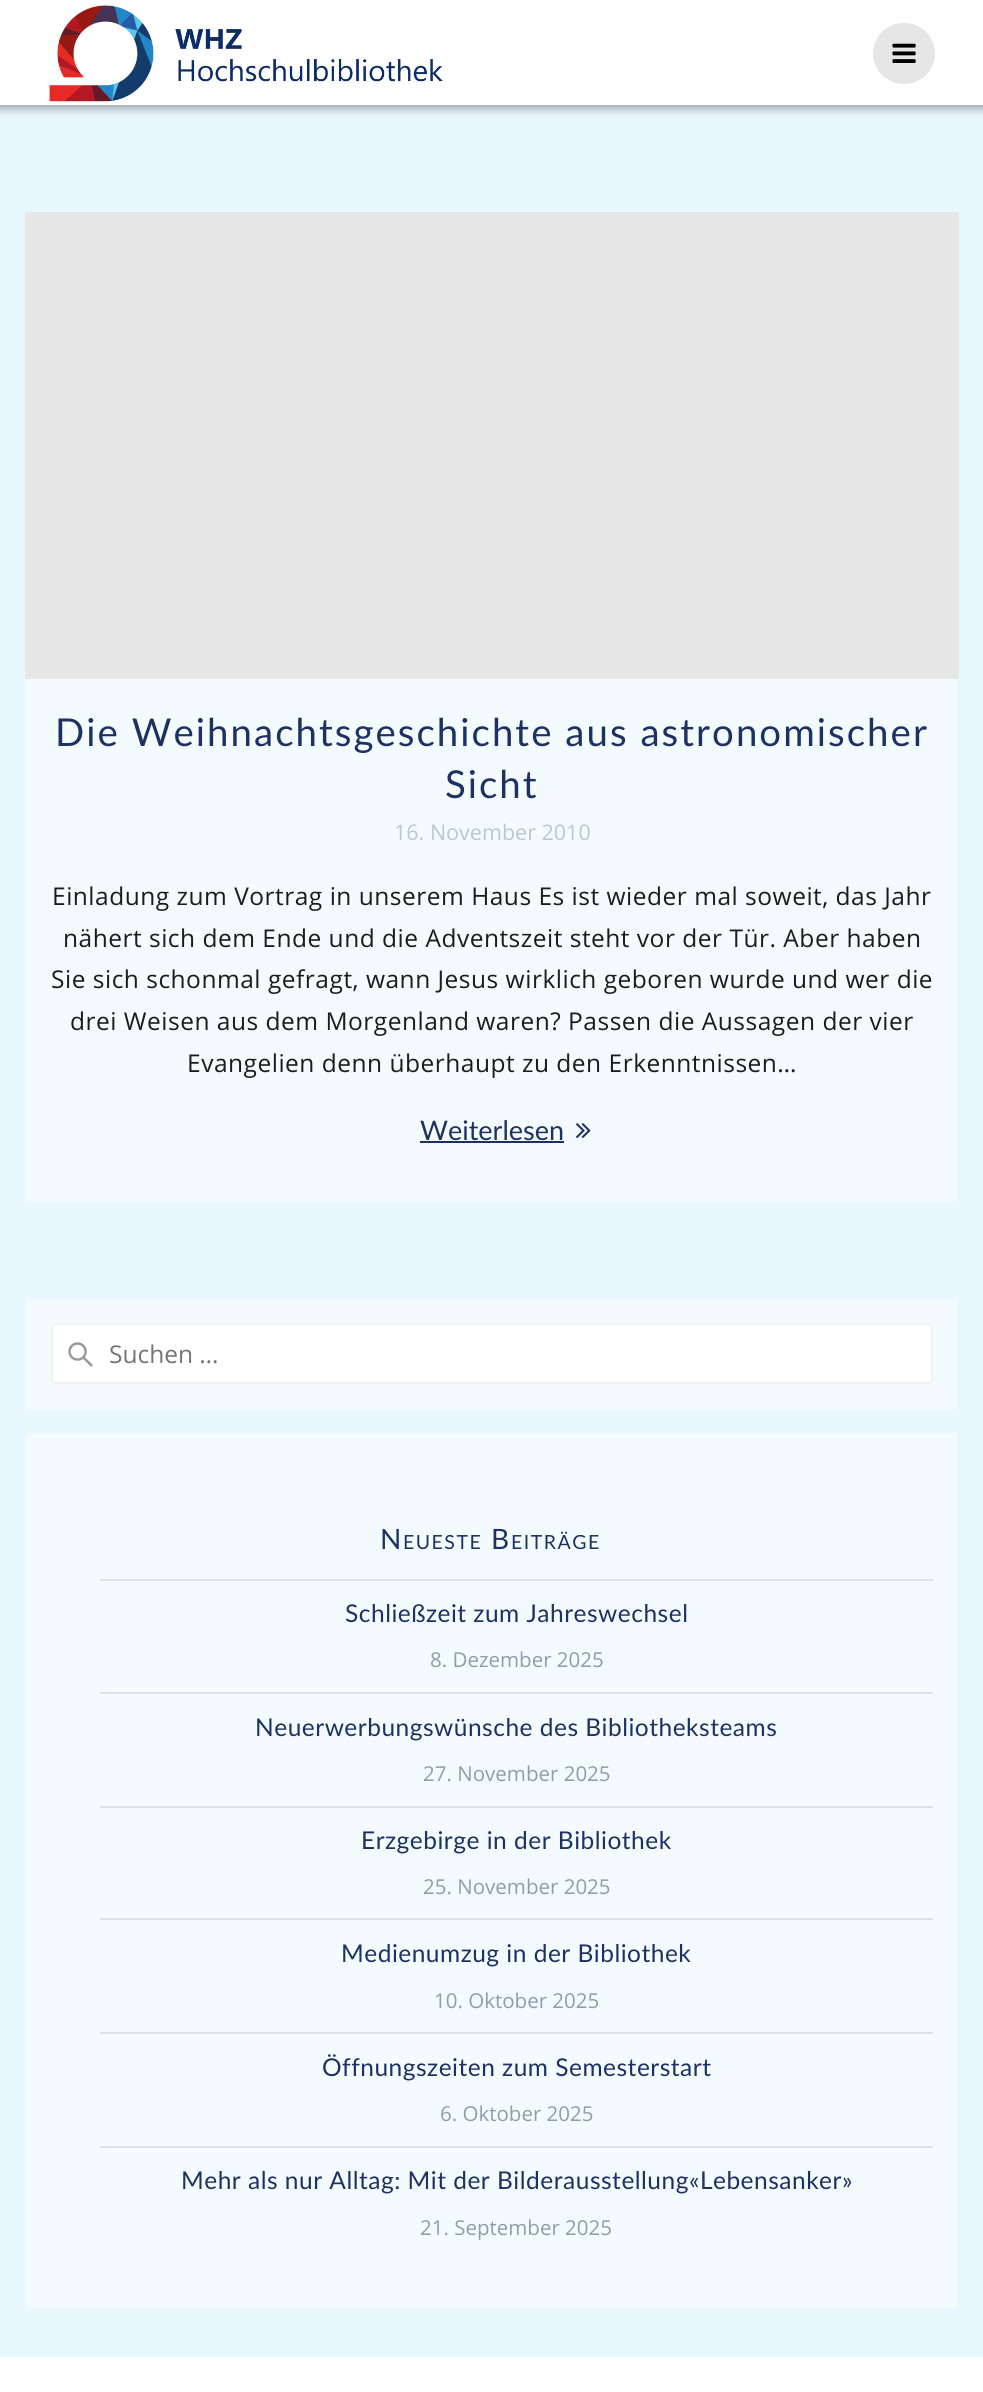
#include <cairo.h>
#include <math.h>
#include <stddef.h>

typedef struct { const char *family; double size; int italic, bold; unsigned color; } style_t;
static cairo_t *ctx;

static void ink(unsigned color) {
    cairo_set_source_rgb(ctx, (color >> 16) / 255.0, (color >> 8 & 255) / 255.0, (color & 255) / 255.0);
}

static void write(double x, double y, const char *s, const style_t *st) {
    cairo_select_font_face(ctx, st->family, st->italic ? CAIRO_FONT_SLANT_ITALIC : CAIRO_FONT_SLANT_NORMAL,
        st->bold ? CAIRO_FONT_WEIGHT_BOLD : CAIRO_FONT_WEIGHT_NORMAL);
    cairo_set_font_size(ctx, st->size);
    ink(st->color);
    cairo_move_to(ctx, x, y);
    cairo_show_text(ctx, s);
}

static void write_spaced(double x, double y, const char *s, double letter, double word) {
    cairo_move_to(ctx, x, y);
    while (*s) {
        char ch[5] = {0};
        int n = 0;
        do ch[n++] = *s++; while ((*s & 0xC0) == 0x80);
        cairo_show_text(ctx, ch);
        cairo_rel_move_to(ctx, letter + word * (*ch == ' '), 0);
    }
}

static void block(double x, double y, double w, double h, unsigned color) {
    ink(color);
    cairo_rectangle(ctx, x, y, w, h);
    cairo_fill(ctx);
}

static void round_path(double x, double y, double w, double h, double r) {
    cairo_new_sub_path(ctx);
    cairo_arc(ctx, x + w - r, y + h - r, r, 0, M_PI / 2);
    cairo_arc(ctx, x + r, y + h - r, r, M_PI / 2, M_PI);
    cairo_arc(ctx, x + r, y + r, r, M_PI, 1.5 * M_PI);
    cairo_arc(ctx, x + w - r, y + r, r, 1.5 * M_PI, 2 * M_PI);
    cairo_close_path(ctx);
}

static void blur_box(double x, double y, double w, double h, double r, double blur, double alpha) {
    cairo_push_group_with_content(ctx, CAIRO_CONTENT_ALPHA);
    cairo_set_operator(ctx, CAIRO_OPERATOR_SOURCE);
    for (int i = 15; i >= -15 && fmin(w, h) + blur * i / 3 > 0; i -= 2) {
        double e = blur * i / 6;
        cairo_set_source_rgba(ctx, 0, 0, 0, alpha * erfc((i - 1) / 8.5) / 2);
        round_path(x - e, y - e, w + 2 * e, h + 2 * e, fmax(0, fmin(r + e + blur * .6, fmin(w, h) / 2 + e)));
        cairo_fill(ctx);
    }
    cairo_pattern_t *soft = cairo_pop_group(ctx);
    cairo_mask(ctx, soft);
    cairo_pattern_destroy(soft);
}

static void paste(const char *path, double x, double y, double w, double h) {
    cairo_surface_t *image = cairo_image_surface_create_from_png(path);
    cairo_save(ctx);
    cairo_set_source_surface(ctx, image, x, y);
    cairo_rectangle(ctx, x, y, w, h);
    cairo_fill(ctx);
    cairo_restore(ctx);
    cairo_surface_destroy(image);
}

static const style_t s1 = {"Open Sans", 21.5, 0, 0, 0xbcc7d2};
static const style_t s2 = {"Lato", 27, 0, 0, 0x1d3164};
static const style_t s3 = {"Open Sans", 24.5, 0, 0, 0x757575};
static const style_t s4 = {"Open Sans", 20.5, 0, 0, 0x8e9dae};

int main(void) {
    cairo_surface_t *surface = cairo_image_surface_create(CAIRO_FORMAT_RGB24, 983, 2392);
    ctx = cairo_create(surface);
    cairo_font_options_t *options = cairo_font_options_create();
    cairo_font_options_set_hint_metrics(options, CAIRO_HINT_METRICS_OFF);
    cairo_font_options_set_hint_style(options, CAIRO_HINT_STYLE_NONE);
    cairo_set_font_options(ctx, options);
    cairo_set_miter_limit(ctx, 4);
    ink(0xffffff);
    cairo_paint(ctx);
    block(0, 105, 983, 2252, 0xe9f7ff);
    ink(0x000000);
    blur_box(-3, -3, 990, 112, 0, 4.5, 0.33);
    block(0, 0, 983, 105, 0xffffff);
    paste("pic1.png", 49, 5, 394, 97);
    ink(0xe6e6e6);
    round_path(873, 23, 62, 61, 30.5);
    cairo_fill(ctx);
    paste("pic2.png", 892, 43, 24, 20);
    block(26, 679, 931, 522, 0xf4fbff);
    block(25, 212, 934, 467, 0xe7e7e7);
    cairo_select_font_face(ctx, "Lato", CAIRO_FONT_SLANT_NORMAL, CAIRO_FONT_WEIGHT_NORMAL);
    cairo_set_font_size(ctx, 38.4);
    ink(0x1d3164);
    write_spaced(55, 746, "Die Weihnachtsgeschichte aus astronomischer", 2.05, 0);
    write_spaced(445, 798, "Sicht", 2, 0);
    write(394, 840, "16. November 2010", &s1);
    cairo_set_font_size(ctx, 24.5);
    ink(0x1c1c1c);
    write_spaced(52, 905, "Einladung zum Vortrag in unserem Haus Es ist wieder mal soweit, das Jahr", 0.5, 0);
    write_spaced(63, 947, "nähert sich dem Ende und die Adventszeit steht vor der Tür. Aber haben", 0.5, 0);
    write_spaced(51, 988, "Sie sich schonmal gefragt, wann Jesus wirklich geboren wurde und wer die", 0.5, 0);
    write_spaced(70, 1030, "drei Weisen aus dem Morgenland waren? Passen die Aussagen der vier", 0.5, 0);
    write_spaced(187, 1072, "Evangelien denn überhaupt zu den Erkenntnissen…", 0.5, 0);
    write(420, 1140, "Weiterlesen", &s2);
    block(420, 1141, 144, 2, 0x1d3164);
    paste("pic3.png", 576, 1123, 15, 15);
    block(26, 1299, 931, 110, 0xf4fbff);
    ink(0xffffff);
    round_path(51, 1323, 882, 61, 5);
    cairo_fill(ctx);
    paste("pic4.png", 68, 1342, 25, 25);
    round_path(52, 1324, 880, 59, 4);
    ink(0xf1f1f1);
    cairo_stroke(ctx);
    write(109, 1363, "Suchen …", &s3);
    block(26, 1433, 931, 875, 0xf4fbff);
    cairo_select_font_face(ctx, "Lato", CAIRO_FONT_SLANT_NORMAL, CAIRO_FONT_WEIGHT_NORMAL);
    cairo_set_font_size(ctx, 28);
    ink(0x1d3164);
    write_spaced(380, 1549, "N", 2, 0);
    cairo_set_font_size(ctx, 19.5);
    write_spaced(403, 1549, "EUESTE", 1.5, 0);
    cairo_set_font_size(ctx, 28);
    write_spaced(491, 1549, "B", 2, 0);
    cairo_set_font_size(ctx, 19.5);
    write_spaced(511, 1549, "EITRÄGE", 1.5, 0);
    block(100, 1579, 833, 2, 0xdce2e6);
    cairo_set_font_size(ctx, 24.5);
    ink(0x1d3164);
    write_spaced(345, 1622, "Schließzeit zum Jahreswechsel", 0.5, 0);
    write(430, 1667, "8. Dezember 2025", &s4);
    block(100, 1692, 833, 2, 0xdce2e6);
    cairo_select_font_face(ctx, "Lato", CAIRO_FONT_SLANT_NORMAL, CAIRO_FONT_WEIGHT_NORMAL);
    cairo_set_font_size(ctx, 24.5);
    ink(0x1d3164);
    write_spaced(255, 1736, "Neuerwerbungswünsche des Bibliotheksteams", 0.5, 0);
    write(423, 1781, "27. November 2025", &s4);
    block(100, 1806, 833, 2, 0xdce2e6);
    cairo_select_font_face(ctx, "Lato", CAIRO_FONT_SLANT_NORMAL, CAIRO_FONT_WEIGHT_NORMAL);
    cairo_set_font_size(ctx, 24.5);
    ink(0x1d3164);
    write_spaced(361, 1849, "Erzgebirge in der Bibliothek", 0.5, 0);
    write(423, 1894, "25. November 2025", &s4);
    block(100, 1918, 833, 2, 0xdce2e6);
    cairo_select_font_face(ctx, "Lato", CAIRO_FONT_SLANT_NORMAL, CAIRO_FONT_WEIGHT_NORMAL);
    cairo_set_font_size(ctx, 24.5);
    ink(0x1d3164);
    write_spaced(341, 1962, "Medienumzug in der Bibliothek", 0.5, 0);
    write(434, 2008, "10. Oktober 2025", &s4);
    block(100, 2032, 833, 2, 0xdce2e6);
    cairo_select_font_face(ctx, "Lato", CAIRO_FONT_SLANT_NORMAL, CAIRO_FONT_WEIGHT_NORMAL);
    cairo_set_font_size(ctx, 24.5);
    ink(0x1d3164);
    write_spaced(322, 2076, "Öffnungszeiten zum Semesterstart", 0.5, 0);
    write(440, 2121, "6. Oktober 2025", &s4);
    block(100, 2146, 833, 2, 0xdce2e6);
    cairo_select_font_face(ctx, "Lato", CAIRO_FONT_SLANT_NORMAL, CAIRO_FONT_WEIGHT_NORMAL);
    cairo_set_font_size(ctx, 24.5);
    ink(0x1d3164);
    write_spaced(181, 2189, "Mehr als nur Alltag: Mit der Bilderausstellung«Lebensanker»", 0.5, 0);
    write(420, 2235, "21. September 2025", &s4);
    cairo_surface_write_to_png(surface, "screenshot.png");
    cairo_font_options_destroy(options);
    cairo_destroy(ctx);
    cairo_surface_destroy(surface);
    return 0;
}
